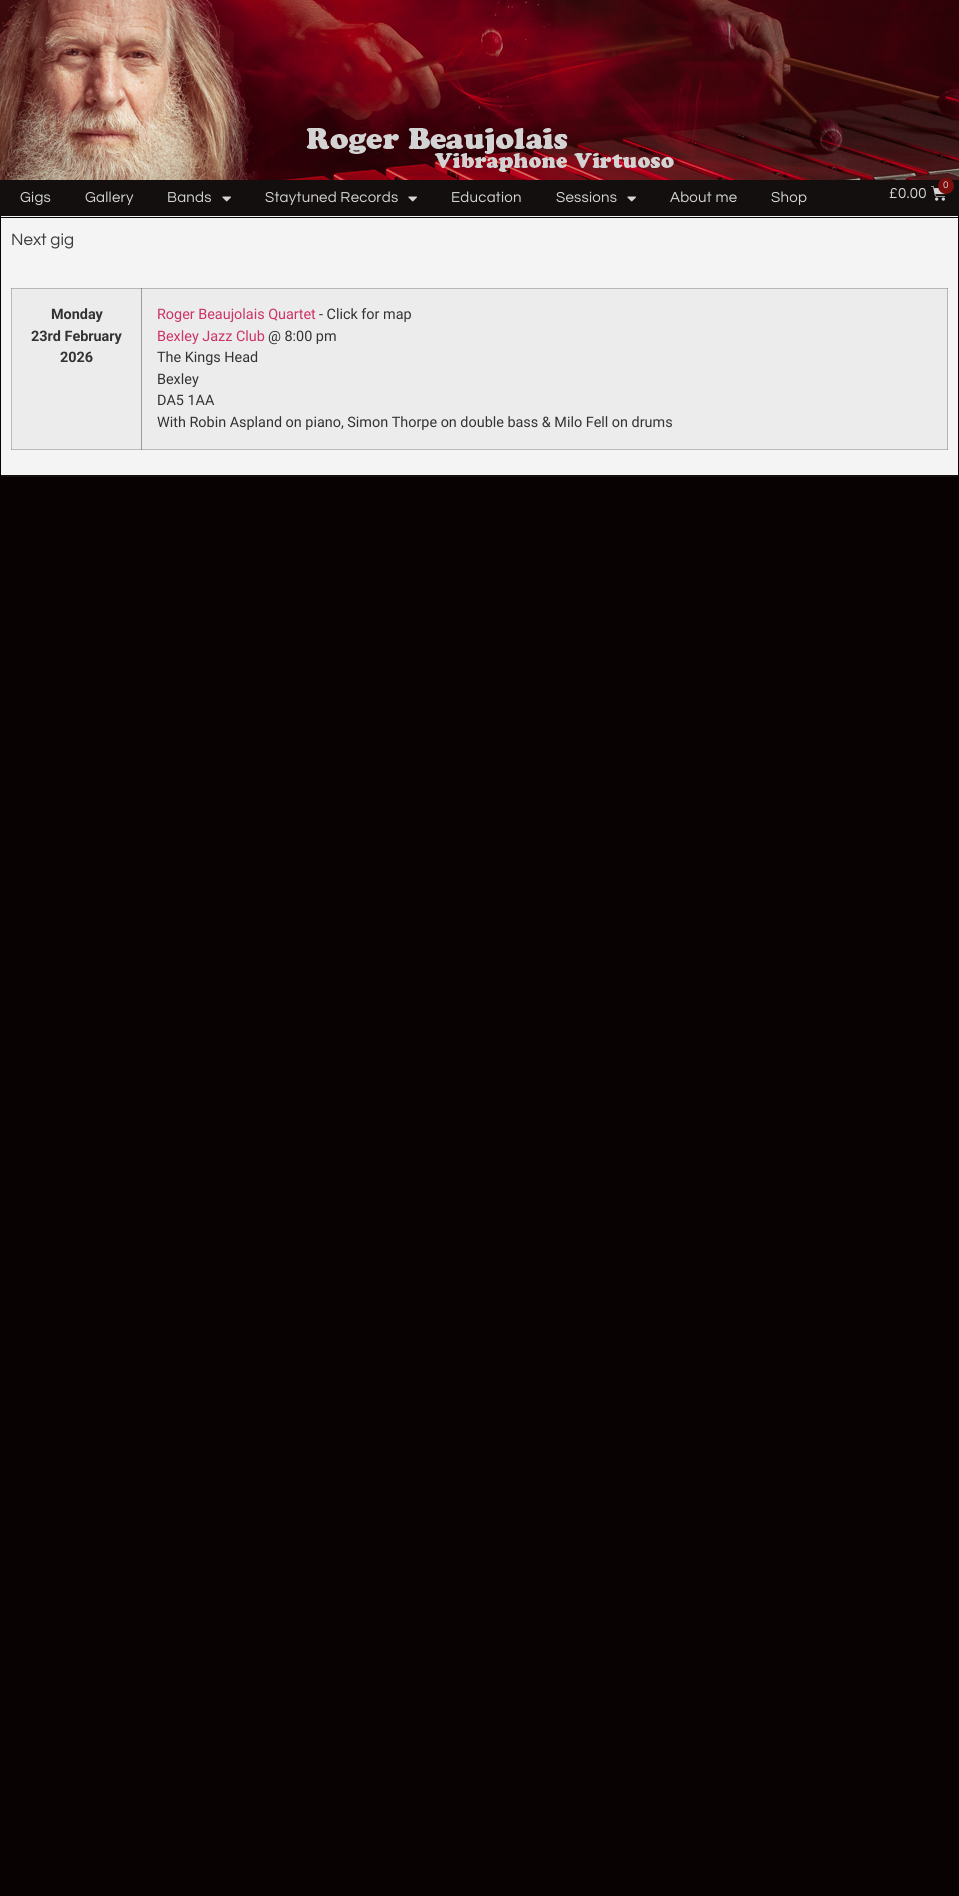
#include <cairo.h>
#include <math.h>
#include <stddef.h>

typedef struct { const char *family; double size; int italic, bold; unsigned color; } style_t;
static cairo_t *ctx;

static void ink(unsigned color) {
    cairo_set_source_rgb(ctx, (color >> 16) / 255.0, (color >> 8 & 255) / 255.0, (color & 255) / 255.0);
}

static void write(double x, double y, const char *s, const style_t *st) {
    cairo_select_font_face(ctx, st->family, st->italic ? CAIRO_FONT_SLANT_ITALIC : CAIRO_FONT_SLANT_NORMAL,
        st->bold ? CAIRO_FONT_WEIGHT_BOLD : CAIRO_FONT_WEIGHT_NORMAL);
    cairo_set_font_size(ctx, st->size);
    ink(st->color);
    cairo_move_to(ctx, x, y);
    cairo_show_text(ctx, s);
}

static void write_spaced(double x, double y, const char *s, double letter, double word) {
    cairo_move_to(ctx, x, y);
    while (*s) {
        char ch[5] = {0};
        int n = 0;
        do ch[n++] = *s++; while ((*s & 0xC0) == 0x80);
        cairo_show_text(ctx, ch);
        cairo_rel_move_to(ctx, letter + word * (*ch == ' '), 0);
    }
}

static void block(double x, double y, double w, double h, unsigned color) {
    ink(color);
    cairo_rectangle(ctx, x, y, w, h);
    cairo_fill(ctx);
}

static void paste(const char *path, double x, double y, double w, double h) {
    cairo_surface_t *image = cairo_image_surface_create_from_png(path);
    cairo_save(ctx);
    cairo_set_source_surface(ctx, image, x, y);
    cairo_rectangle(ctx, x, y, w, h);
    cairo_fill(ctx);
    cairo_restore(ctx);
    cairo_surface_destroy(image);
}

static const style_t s1 = {"Questrial", 17, 0, 0, 0x3c3c3c};
static const style_t s2 = {"Roboto", 14.4, 0, 1, 0x333333};
static const style_t s3 = {"Roboto", 14.4, 0, 0, 0xcc3366};
static const style_t s4 = {"Roboto", 14.4, 0, 0, 0x333333};

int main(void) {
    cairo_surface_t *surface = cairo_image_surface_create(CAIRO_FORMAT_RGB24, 959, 1896);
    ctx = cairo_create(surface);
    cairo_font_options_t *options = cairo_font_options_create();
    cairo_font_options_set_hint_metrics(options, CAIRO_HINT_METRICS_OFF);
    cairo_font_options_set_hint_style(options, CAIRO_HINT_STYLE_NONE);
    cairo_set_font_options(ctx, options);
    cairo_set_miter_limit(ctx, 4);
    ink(0xffffff);
    cairo_paint(ctx);
    paste("pic1.png", 0, 0, 959, 180);
    block(0, 180, 959, 36, 0x130f0f);
    cairo_select_font_face(ctx, "Questrial", CAIRO_FONT_SLANT_NORMAL, CAIRO_FONT_WEIGHT_NORMAL);
    cairo_set_font_size(ctx, 15);
    ink(0xd5d5d5);
    write_spaced(20, 202, "Gigs", 0.25, 0);
    write_spaced(85, 202, "Gallery", 0.25, 0);
    write_spaced(167, 202, "Bands", 0.25, 0);
    paste("pic2.png", 222, 196, 9, 6);
    write_spaced(265, 202, "Staytuned Records", 0.25, 0);
    paste("pic2.png", 408, 196, 9, 6);
    write_spaced(451, 202, "Education", 0.25, 0);
    write_spaced(556, 202, "Sessions", 0.25, 0);
    paste("pic2.png", 627, 196, 9, 6);
    write_spaced(670, 202, "About me", 0.25, 0);
    write_spaced(771, 202, "Shop", 0.25, 0);
    paste("pic3.png", 931, 186, 15, 15);
    ink(0x7b0d0d);
    cairo_arc(ctx, 946, 186, 8, 0, 2 * M_PI);
    cairo_fill(ctx);
    cairo_set_font_size(ctx, 10);
    ink(0xd5d5d5);
    write_spaced(943, 188, "0", 0.25, 0);
    cairo_set_font_size(ctx, 15);
    write_spaced(889, 198, "£0.00", 0.25, 0);
    block(0, 216, 959, 1680, 0x090202);
    block(1, 216, 957, 1, 0xf4f4f4);
    block(1, 218, 957, 257, 0xf4f4f4);
    block(11, 288, 1, 162, 0xbababa);
    block(11, 449, 937, 1, 0xbababa);
    block(11, 449, 1, 1, 0x9d9d9d);
    block(11, 288, 1, 1, 0x9d9d9d);
    block(141, 449, 1, 1, 0x888888);
    block(947, 449, 1, 1, 0x9d9d9d);
    block(1, 475, 957, 2, 0x130f0f);
    write(11, 245, "Next gig", &s1);
    block(12, 289, 129, 160, 0xececec);
    block(12, 288, 130, 1, 0xb6b6b6);
    block(141, 288, 1, 161, 0x9b9b9b);
    write(51, 319, "Monday", &s2);
    write(31, 341, "23rd February", &s2);
    write(60, 362, "2026", &s2);
    block(142, 289, 805, 160, 0xececec);
    block(947, 288, 1, 161, 0xb6b6b6);
    block(141, 288, 807, 1, 0xb6b6b6);
    block(141, 288, 1, 1, 0x878787);
    block(947, 288, 1, 1, 0x9b9b9b);
    write(157, 319, "Roger Beaujolais Quartet", &s3);
    write(319, 319, "- Click for map", &s4);
    write(157, 341, "Bexley Jazz Club", &s3);
    write(268, 341, "@ 8:00 pm", &s4);
    write(157, 362, "The Kings Head", &s4);
    write(157, 384, "Bexley", &s4);
    write(157, 405, "DA5 1AA", &s4);
    write(157, 427, "With Robin Aspland on piano, Simon Thorpe on double bass & Milo Fell on drums", &s4);
    cairo_surface_write_to_png(surface, "screenshot.png");
    cairo_font_options_destroy(options);
    cairo_destroy(ctx);
    cairo_surface_destroy(surface);
    return 0;
}
